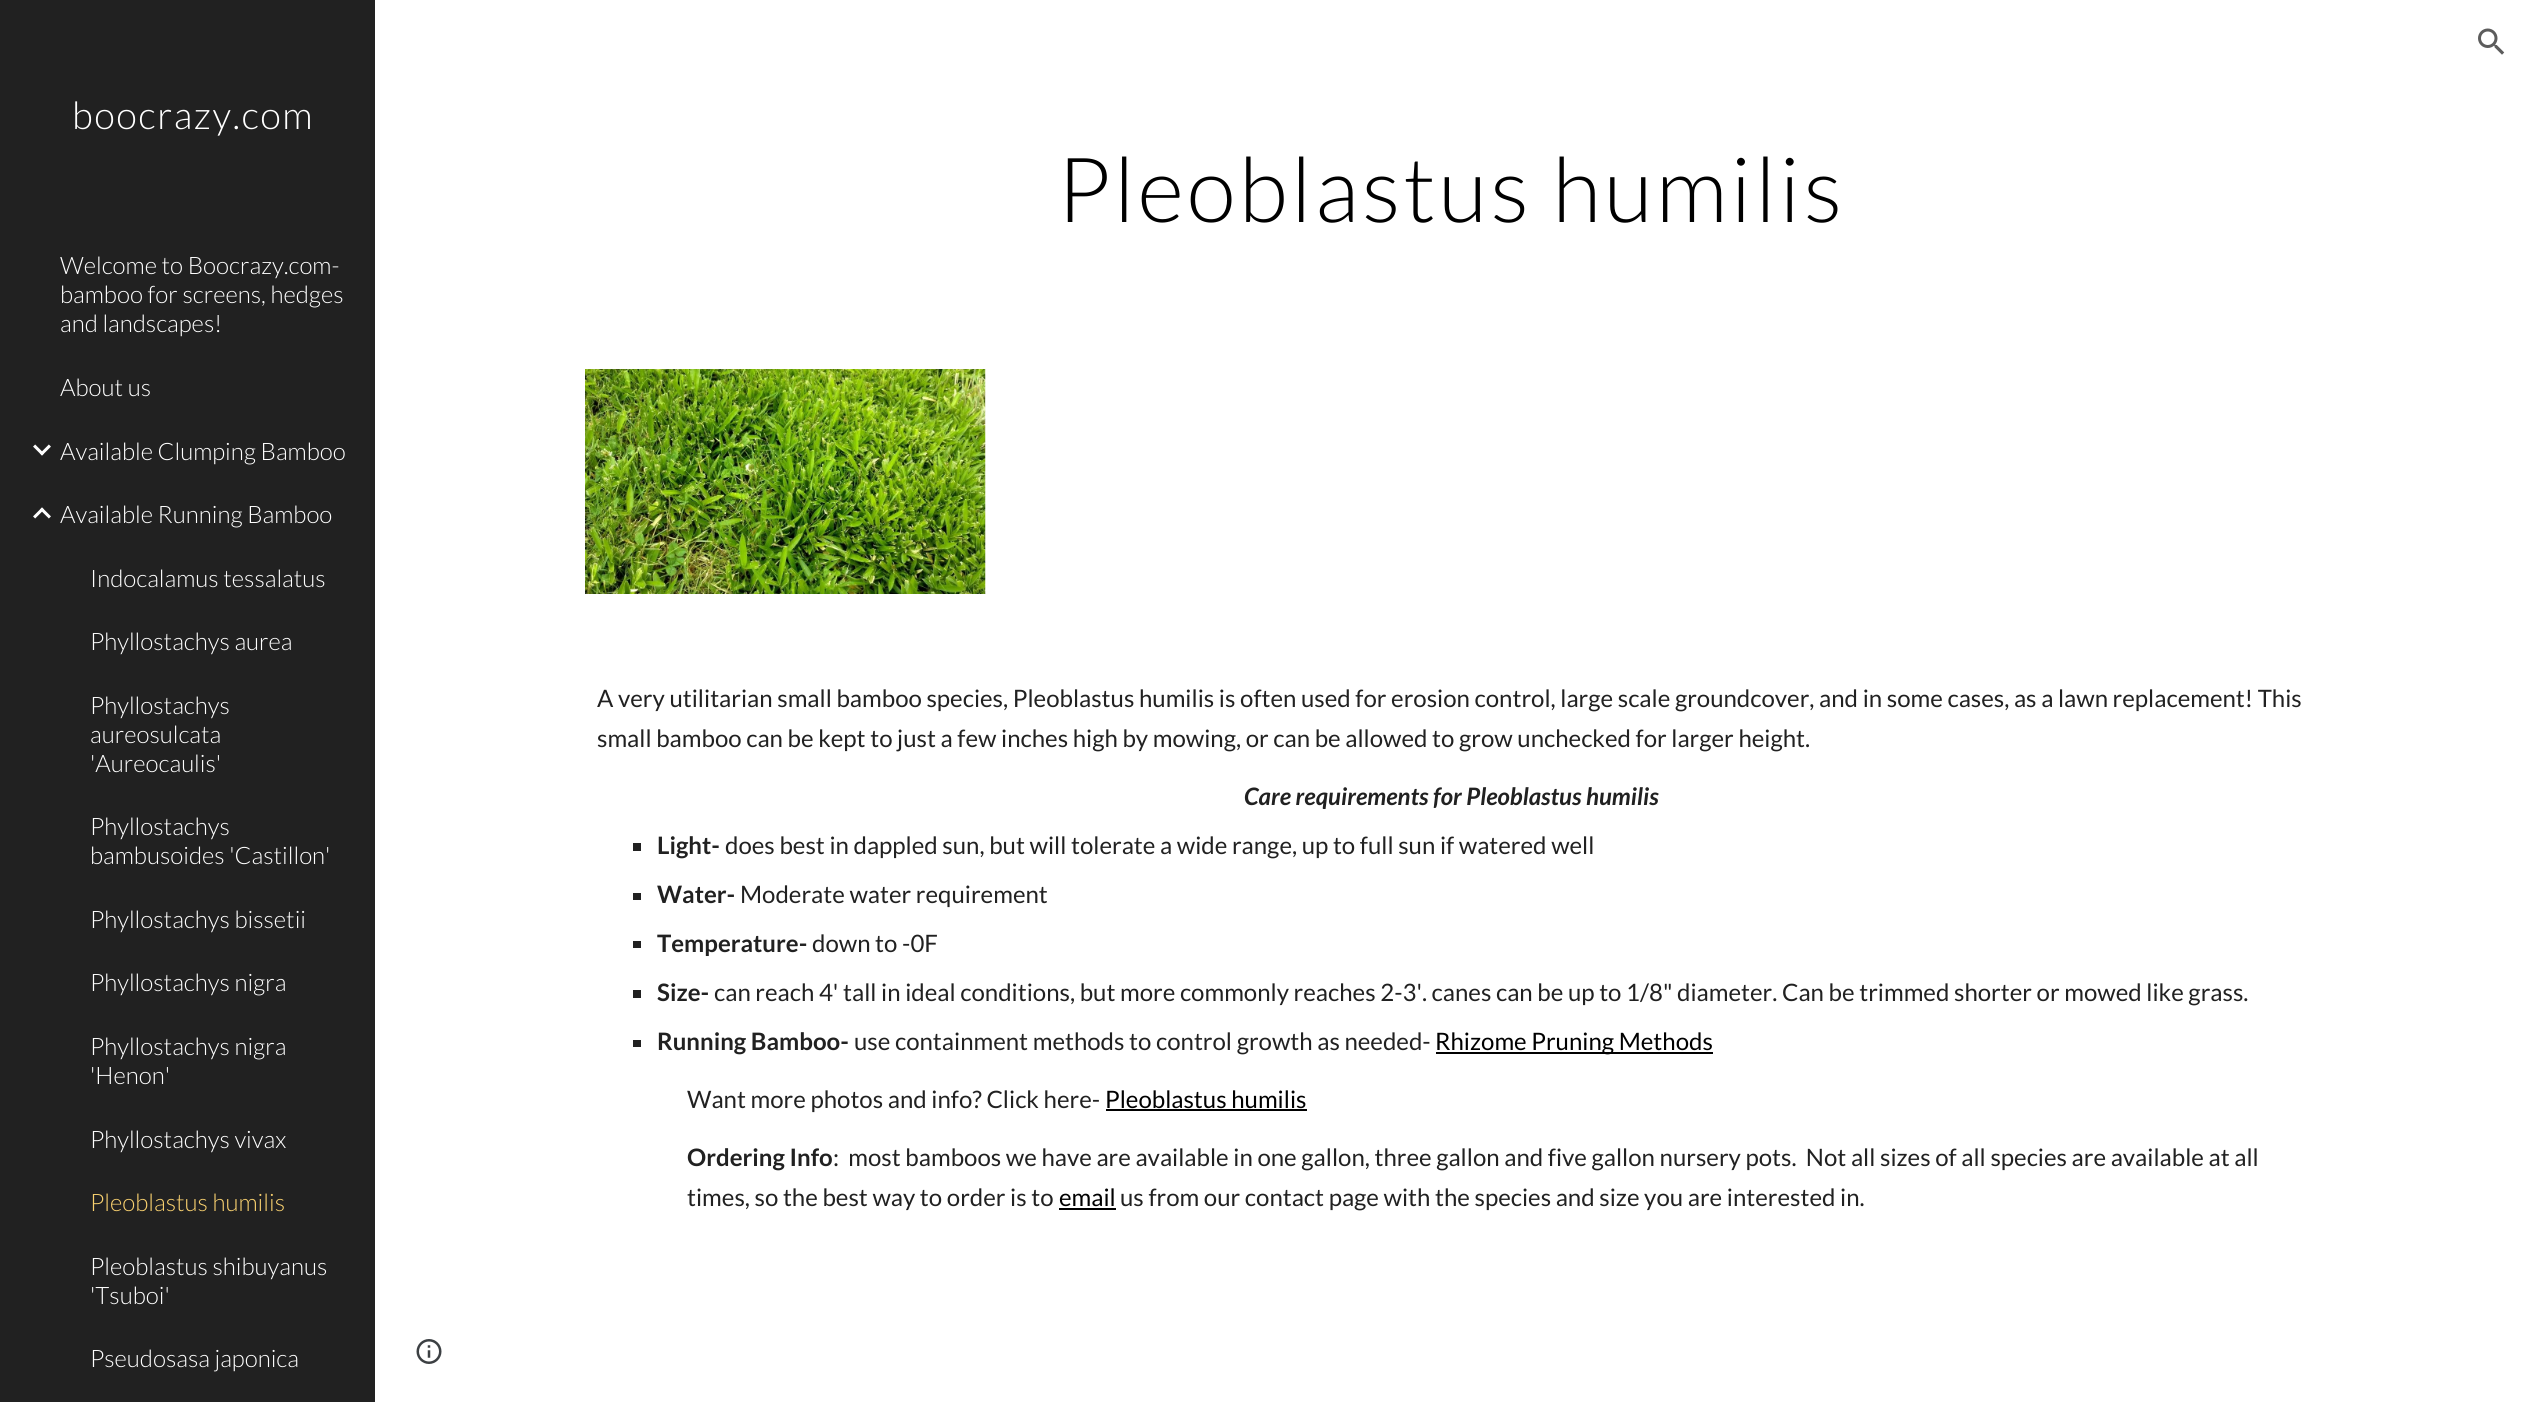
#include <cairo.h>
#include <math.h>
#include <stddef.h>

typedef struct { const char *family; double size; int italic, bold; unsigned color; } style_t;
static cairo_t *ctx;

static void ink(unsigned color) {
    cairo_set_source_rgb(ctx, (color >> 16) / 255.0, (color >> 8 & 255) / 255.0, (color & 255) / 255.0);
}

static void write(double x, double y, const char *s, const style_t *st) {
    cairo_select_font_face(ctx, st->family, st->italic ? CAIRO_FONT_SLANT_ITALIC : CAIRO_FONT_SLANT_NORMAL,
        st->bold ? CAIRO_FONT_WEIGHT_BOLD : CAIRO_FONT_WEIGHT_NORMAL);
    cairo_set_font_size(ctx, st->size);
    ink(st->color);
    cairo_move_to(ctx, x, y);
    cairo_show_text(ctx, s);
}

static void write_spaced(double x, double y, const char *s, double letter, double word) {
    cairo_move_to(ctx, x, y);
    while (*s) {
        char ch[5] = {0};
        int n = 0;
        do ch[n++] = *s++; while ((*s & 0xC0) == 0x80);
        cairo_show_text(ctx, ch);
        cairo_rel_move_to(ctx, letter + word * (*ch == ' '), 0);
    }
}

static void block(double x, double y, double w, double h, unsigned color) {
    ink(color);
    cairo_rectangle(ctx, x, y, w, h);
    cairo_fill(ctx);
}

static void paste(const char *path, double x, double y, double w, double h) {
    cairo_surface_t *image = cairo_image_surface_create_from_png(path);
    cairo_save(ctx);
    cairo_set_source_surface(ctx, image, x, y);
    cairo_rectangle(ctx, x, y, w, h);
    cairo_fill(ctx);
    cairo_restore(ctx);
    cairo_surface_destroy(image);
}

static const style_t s1 = {"Lato Light", 24, 0, 0, 0xffffff};
static const style_t s2 = {"Lato Light", 24, 0, 0, 0xf9d16f};
static const style_t s3 = {"Lato", 24, 0, 0, 0x212121};
static const style_t s4 = {"Lato", 24, 1, 1, 0x212121};
static const style_t s5 = {"Lato", 24, 0, 1, 0x212121};
static const style_t s6 = {"Lato", 24, 0, 0, 0x000000};

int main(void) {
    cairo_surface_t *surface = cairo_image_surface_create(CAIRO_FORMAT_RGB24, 2527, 1402);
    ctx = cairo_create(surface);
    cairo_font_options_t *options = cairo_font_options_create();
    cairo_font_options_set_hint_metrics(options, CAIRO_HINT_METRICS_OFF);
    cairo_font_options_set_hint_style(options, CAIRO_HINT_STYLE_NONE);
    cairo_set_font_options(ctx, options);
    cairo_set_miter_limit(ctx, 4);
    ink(0xffffff);
    cairo_paint(ctx);
    paste("pic1.png", 2478, 28, 27, 27);
    block(0, 0, 375, 1402, 0x212121);
    cairo_select_font_face(ctx, "Lato Light", CAIRO_FONT_SLANT_NORMAL, CAIRO_FONT_WEIGHT_NORMAL);
    cairo_set_font_size(ctx, 38);
    ink(0xffffff);
    write_spaced(72, 129, "boocrazy.com", 1.5, 0);
    write(60, 274, "Welcome to Boocrazy.com-", &s1);
    write(60, 303, "bamboo for screens, hedges", &s1);
    write(60, 332, "and landscapes!", &s1);
    write(60, 396, "About us", &s1);
    paste("pic2.png", 33, 444, 18, 12);
    write(60, 460, "Available Clumping Bamboo", &s1);
    paste("pic3.png", 33, 507, 18, 12);
    write(60, 523, "Available Running Bamboo", &s1);
    write(90, 587, "Indocalamus tessalatus", &s1);
    write(90, 650, "Phyllostachys aurea", &s1);
    write(90, 714, "Phyllostachys", &s1);
    write(90, 743, "aureosulcata", &s1);
    write(90, 772, "'Aureocaulis'", &s1);
    write(90, 835, "Phyllostachys", &s1);
    write(90, 864, "bambusoides 'Castillon'", &s1);
    write(90, 928, "Phyllostachys bissetii", &s1);
    write(90, 991, "Phyllostachys nigra", &s1);
    write(90, 1055, "Phyllostachys nigra", &s1);
    write(90, 1084, "'Henon'", &s1);
    write(90, 1148, "Phyllostachys vivax", &s1);
    write(90, 1211, "Pleoblastus humilis", &s2);
    write(90, 1275, "Pleoblastus shibuyanus", &s1);
    write(90, 1304, "'Tsuboi'", &s1);
    write(90, 1367, "Pseudosasa japonica", &s1);
    cairo_set_font_size(ctx, 90);
    ink(0x000000);
    write_spaced(1057, 222, "Pleoblastus humilis", 3, 0);
    paste("pic4.png", 585, 369, 401, 225);
    write(597, 707, "A very utilitarian small bamboo species, Pleoblastus humilis is often used for erosion control, large scale groundcover, and in some cases, as a lawn replacement! This", &s3);
    write(597, 747, "small bamboo can be kept to just a few inches high by mowing, or can be allowed to grow unchecked for larger height.", &s3);
    write(1244, 805, "Care requirements for Pleoblastus humilis", &s4);
    block(633, 843, 8, 8, 0x212121);
    write(657, 854, "Light-", &s5);
    write(725, 854, "does best in dappled sun, but will tolerate a wide range, up to full sun if watered well", &s3);
    block(633, 893, 8, 7, 0x212121);
    write(657, 903, "Water-", &s5);
    write(740, 903, "Moderate water requirement", &s3);
    block(633, 941, 8, 7, 0x212121);
    write(657, 952, "Temperature-", &s5);
    write(812, 952, "down to -0F", &s3);
    block(633, 990, 8, 8, 0x212121);
    write(657, 1001, "Size-", &s5);
    write(714, 1001, "can reach 4' tall in ideal conditions, but more commonly reaches 2-3'. canes can be up to 1/8\" diameter. Can be trimmed shorter or mowed like grass.", &s3);
    block(633, 1040, 8, 7, 0x212121);
    write(657, 1050, "Running Bamboo-", &s5);
    write(854, 1050, "use containment methods to control growth as needed-", &s3);
    block(1436, 1052, 277, 2, 0x000000);
    write(1435, 1050, "Rhizome Pruning Methods", &s6);
    write(687, 1108, "Want more photos and info? Click here-", &s3);
    write(1105, 1108, "Pleoblastus humilis", &s6);
    block(1106, 1109, 201, 2, 0x000000);
    write(687, 1166, "Ordering Info", &s5);
    write(833, 1166, ":  most bamboos we have are available in one gallon, three gallon and five gallon nursery pots.  Not all sizes of all species are available at all", &s3);
    write(687, 1206, "times, so the best way to order is to", &s3);
    write(1059, 1206, "email", &s6);
    block(1059, 1208, 57, 2, 0x000000);
    write(1120, 1206, "us from our contact page with the species and size you are interested in.", &s3);
    paste("pic5.png", 416, 1339, 26, 25);
    cairo_surface_write_to_png(surface, "screenshot.png");
    cairo_font_options_destroy(options);
    cairo_destroy(ctx);
    cairo_surface_destroy(surface);
    return 0;
}
